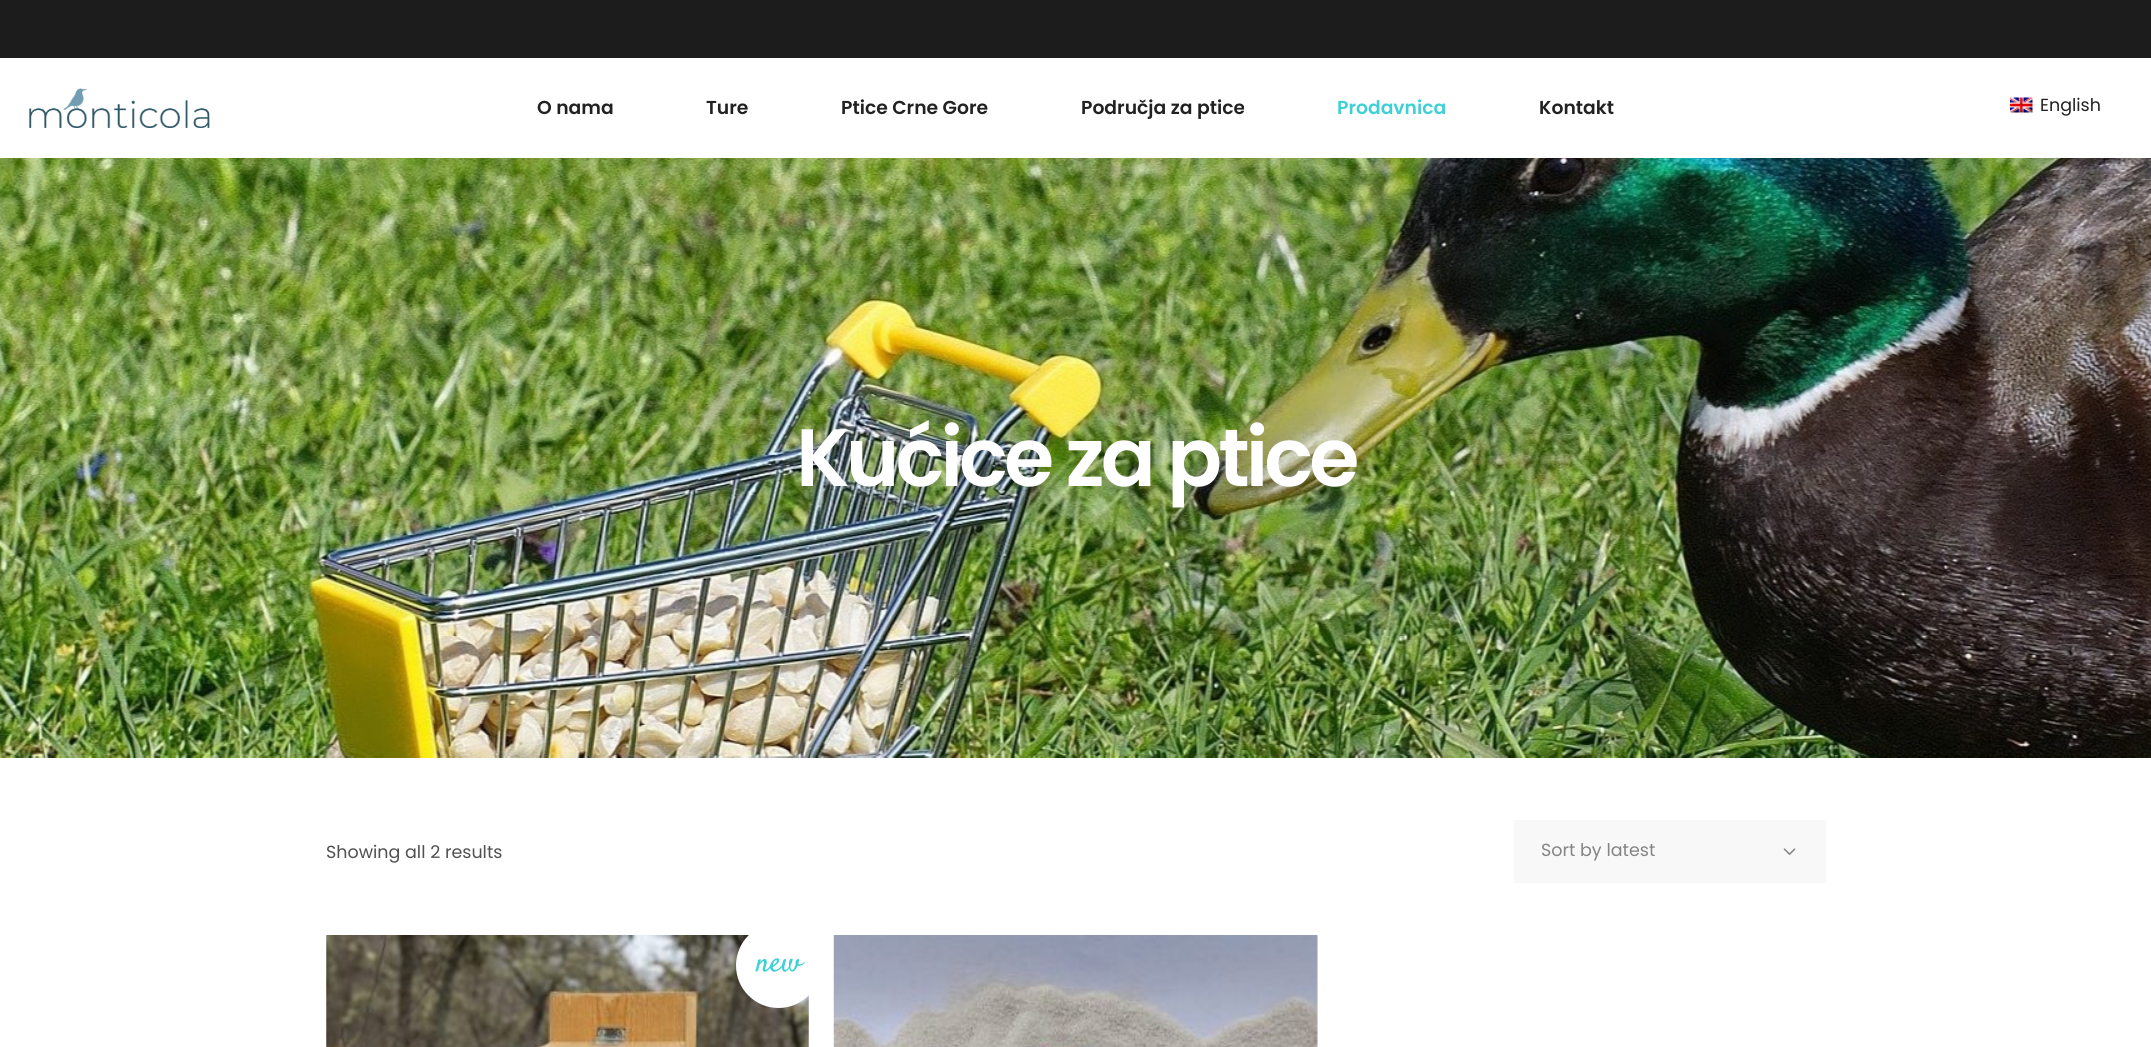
#include <cairo.h>
#include <math.h>
#include <stddef.h>

typedef struct { const char *family; double size; int italic, bold; unsigned color; } style_t;
static cairo_t *ctx;

static void ink(unsigned color) {
    cairo_set_source_rgb(ctx, (color >> 16) / 255.0, (color >> 8 & 255) / 255.0, (color & 255) / 255.0);
}

static void write(double x, double y, const char *s, const style_t *st) {
    cairo_select_font_face(ctx, st->family, st->italic ? CAIRO_FONT_SLANT_ITALIC : CAIRO_FONT_SLANT_NORMAL,
        st->bold ? CAIRO_FONT_WEIGHT_BOLD : CAIRO_FONT_WEIGHT_NORMAL);
    cairo_set_font_size(ctx, st->size);
    ink(st->color);
    cairo_move_to(ctx, x, y);
    cairo_show_text(ctx, s);
}

static void write_spaced(double x, double y, const char *s, double letter, double word) {
    cairo_move_to(ctx, x, y);
    while (*s) {
        char ch[5] = {0};
        int n = 0;
        do ch[n++] = *s++; while ((*s & 0xC0) == 0x80);
        cairo_show_text(ctx, ch);
        cairo_rel_move_to(ctx, letter + word * (*ch == ' '), 0);
    }
}

static void block(double x, double y, double w, double h, unsigned color) {
    ink(color);
    cairo_rectangle(ctx, x, y, w, h);
    cairo_fill(ctx);
}

static void paste(const char *path, double x, double y, double w, double h) {
    cairo_surface_t *image = cairo_image_surface_create_from_png(path);
    cairo_save(ctx);
    cairo_set_source_surface(ctx, image, x, y);
    cairo_rectangle(ctx, x, y, w, h);
    cairo_fill(ctx);
    cairo_restore(ctx);
    cairo_surface_destroy(image);
}

static const style_t s1 = {"Poppins SemiBold", 18.75, 0, 0, 0x212121};
static const style_t s2 = {"Poppins SemiBold", 18.75, 0, 0, 0x3fd0d4};
static const style_t s3 = {"Poppins", 17.5, 0, 0, 0x212121};
static const style_t s4 = {"Poppins", 17.5, 0, 0, 0x505050};
static const style_t s5 = {"Poppins", 17.5, 0, 0, 0x848484};
static const style_t s6 = {"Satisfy", 31, 0, 0, 0x3fd0d4};

int main(void) {
    cairo_surface_t *surface = cairo_image_surface_create(CAIRO_FORMAT_RGB24, 2151, 1047);
    ctx = cairo_create(surface);
    cairo_font_options_t *options = cairo_font_options_create();
    cairo_font_options_set_hint_metrics(options, CAIRO_HINT_METRICS_OFF);
    cairo_font_options_set_hint_style(options, CAIRO_HINT_STYLE_NONE);
    cairo_set_font_options(ctx, options);
    cairo_set_miter_limit(ctx, 4);
    ink(0xffffff);
    cairo_paint(ctx);
    block(0, 0, 2151, 58, 0x1c1c1c);
    paste("pic1.png", 29, 88, 181, 40);
    write(537, 114, "O nama", &s1);
    write(706, 114, "Ture", &s1);
    write(841, 114, "Ptice Crne Gore", &s1);
    write(1081, 114, "Područja za ptice", &s1);
    write(1337, 114, "Prodavnica", &s2);
    write(1539, 114, "Kontakt", &s1);
    paste("pic2.png", 2010, 97, 23, 16);
    write(2040, 111, "English", &s3);
    paste("pic3.png", 0, 158, 2151, 600);
    cairo_select_font_face(ctx, "Poppins SemiBold", CAIRO_FONT_SLANT_NORMAL, CAIRO_FONT_WEIGHT_NORMAL);
    cairo_set_font_size(ctx, 81.25);
    ink(0xffffff);
    write_spaced(796, 486, "Kućice za ptice", -4, 0);
    write(326, 858, "Showing all 2 results", &s4);
    block(1514, 820, 312, 63, 0xf8f8f8);
    write(1541, 856, "Sort by latest", &s5);
    paste("pic4.png", 1783, 848, 13, 7);
    paste("pic5.png", 326, 935, 483, 112);
    ink(0xffffff);
    cairo_arc(ctx, 778.5, 965.5, 42.5, 0, 2 * M_PI);
    cairo_fill(ctx);
    write(756, 971, "new", &s6);
    paste("pic6.png", 833, 935, 485, 112);
    cairo_surface_write_to_png(surface, "screenshot.png");
    cairo_font_options_destroy(options);
    cairo_destroy(ctx);
    cairo_surface_destroy(surface);
    return 0;
}
